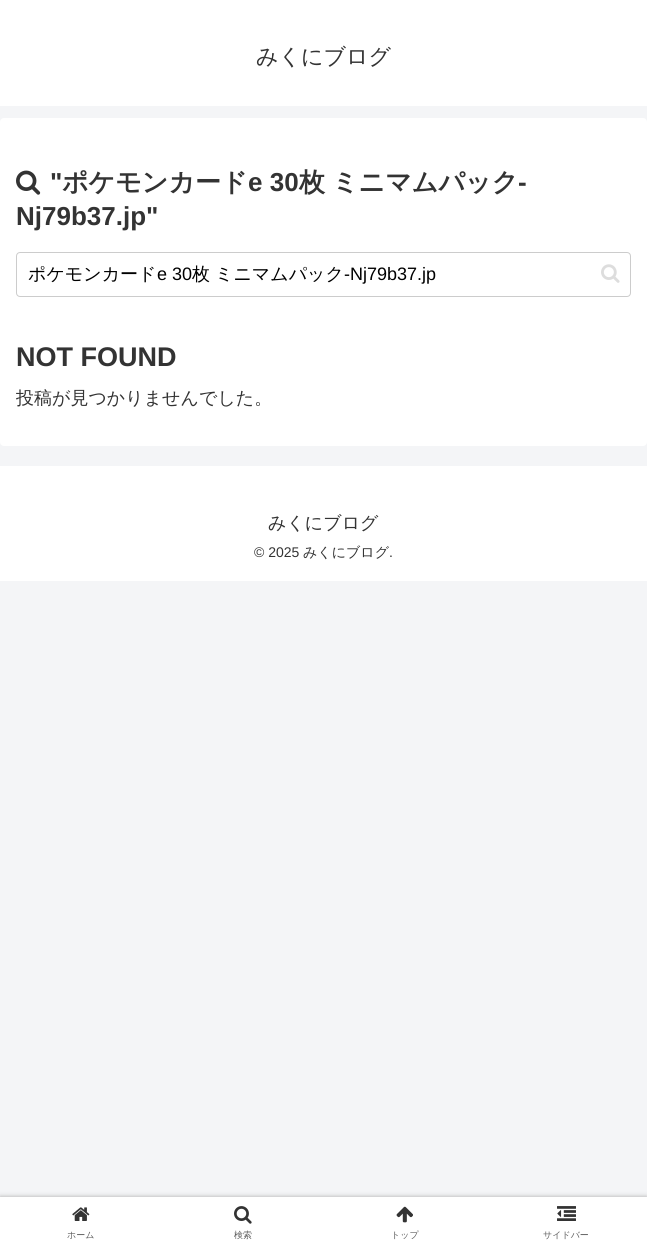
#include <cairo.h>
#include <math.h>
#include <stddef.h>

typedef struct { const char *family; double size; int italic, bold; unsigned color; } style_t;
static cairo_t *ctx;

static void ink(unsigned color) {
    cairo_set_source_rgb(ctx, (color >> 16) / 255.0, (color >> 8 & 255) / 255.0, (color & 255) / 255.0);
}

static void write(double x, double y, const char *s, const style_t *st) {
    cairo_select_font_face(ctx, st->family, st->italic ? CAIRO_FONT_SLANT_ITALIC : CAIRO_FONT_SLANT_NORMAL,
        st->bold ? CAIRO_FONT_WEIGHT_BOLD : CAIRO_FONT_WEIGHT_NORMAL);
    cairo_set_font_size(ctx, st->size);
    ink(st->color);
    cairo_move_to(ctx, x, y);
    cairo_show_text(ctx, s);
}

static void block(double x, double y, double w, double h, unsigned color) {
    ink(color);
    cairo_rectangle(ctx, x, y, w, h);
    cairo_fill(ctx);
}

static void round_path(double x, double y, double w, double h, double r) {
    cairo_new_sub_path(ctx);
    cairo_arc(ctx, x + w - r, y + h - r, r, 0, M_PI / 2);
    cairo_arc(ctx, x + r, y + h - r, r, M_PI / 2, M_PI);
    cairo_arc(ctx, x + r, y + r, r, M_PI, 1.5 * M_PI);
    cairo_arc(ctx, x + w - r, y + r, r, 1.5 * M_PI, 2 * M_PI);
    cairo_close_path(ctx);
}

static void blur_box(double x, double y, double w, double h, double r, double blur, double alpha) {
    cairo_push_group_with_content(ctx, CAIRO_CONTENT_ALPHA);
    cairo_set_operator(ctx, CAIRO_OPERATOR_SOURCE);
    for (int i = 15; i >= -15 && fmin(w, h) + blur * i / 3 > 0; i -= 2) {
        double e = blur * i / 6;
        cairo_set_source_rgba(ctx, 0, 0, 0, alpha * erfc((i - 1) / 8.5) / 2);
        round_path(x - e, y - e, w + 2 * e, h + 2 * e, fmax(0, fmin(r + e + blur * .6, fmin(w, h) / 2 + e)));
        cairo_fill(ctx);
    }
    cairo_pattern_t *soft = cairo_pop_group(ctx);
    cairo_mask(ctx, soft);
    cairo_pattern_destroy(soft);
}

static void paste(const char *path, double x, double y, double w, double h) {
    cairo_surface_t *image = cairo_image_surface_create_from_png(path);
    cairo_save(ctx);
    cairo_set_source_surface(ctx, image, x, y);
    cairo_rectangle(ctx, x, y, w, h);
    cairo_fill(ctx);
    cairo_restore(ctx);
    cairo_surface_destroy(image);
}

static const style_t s1 = {"WenQuanYi Zen Hei Medium", 22, 0, 0, 0x333333};
static const style_t s2 = {"Liberation Sans", 26, 0, 1, 0x333333};
static const style_t s3 = {"WenQuanYi Zen Hei", 26, 0, 1, 0x333333};
static const style_t s4 = {"WenQuanYi Zen Hei Medium", 18, 0, 0, 0x000000};
static const style_t s5 = {"Liberation Sans", 18, 0, 0, 0x000000};
static const style_t s6 = {"Liberation Sans", 27, 0, 1, 0x333333};
static const style_t s7 = {"WenQuanYi Zen Hei Medium", 18, 0, 0, 0x333333};
static const style_t s8 = {"Liberation Sans", 14, 0, 0, 0x333333};
static const style_t s9 = {"WenQuanYi Zen Hei Medium", 14, 0, 0, 0x333333};
static const style_t s10 = {"WenQuanYi Zen Hei Medium", 9, 0, 0, 0x5c5c5c};

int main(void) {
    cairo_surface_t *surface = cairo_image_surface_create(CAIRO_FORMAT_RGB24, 647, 1247);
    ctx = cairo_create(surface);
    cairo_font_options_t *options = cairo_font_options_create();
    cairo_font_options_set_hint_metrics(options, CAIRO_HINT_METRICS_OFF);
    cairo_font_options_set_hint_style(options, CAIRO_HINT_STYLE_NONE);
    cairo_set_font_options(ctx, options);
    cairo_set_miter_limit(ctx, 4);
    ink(0xf4f5f7);
    cairo_paint(ctx);
    block(0, 0, 647, 106, 0xffffff);
    write(256, 64, "みくにブログ", &s1);
    ink(0xffffff);
    round_path(0, 118, 647, 328, 4);
    cairo_fill(ctx);
    paste("pic1.png", 16, 170, 25, 25);
    write(50, 191, "\"", &s2);
    write(62, 191, "ポケモンカード", &s3);
    write(248, 191, "e 30", &s2);
    write(299, 191, "枚", &s3);
    write(332, 191, "ミニマムパック", &s3);
    write(518, 191, "-", &s2);
    write(16, 225, "Nj79b37.jp\"", &s2);
    round_path(16.5, 252.5, 614, 44, 3.5);
    ink(0xcccccc);
    cairo_set_line_width(ctx, 1);
    cairo_stroke(ctx);
    write(28, 280, "ポケモンカード", &s4);
    write(157, 280, "e 30", &s5);
    write(192, 280, "枚", &s4);
    write(215, 280, "ミニマムパック", &s4);
    write(344, 280, "-Nj79b37.jp", &s5);
    paste("pic2.png", 601, 264, 19, 19);
    write(16, 366, "NOT FOUND", &s6);
    write(16, 404, "投稿が見つかりませんでした。", &s7);
    block(0, 466, 647, 115, 0xffffff);
    write(268, 529, "みくにブログ", &s7);
    write(254, 557, "© 2025", &s8);
    write(303, 557, "みくにブログ", &s9);
    write(389, 557, ".", &s8);
    ink(0xa9a9a9);
    blur_box(0, 1197, 647, 50, 0, 2.5, 1);
    block(0, 1197, 647, 50, 0xffffff);
    paste("pic3.png", 72, 1207, 18, 14);
    write(67, 1238, "ホーム", &s10);
    paste("pic4.png", 234, 1206, 18, 18);
    write(234, 1238, "検索", &s10);
    paste("pic5.png", 396, 1206, 17, 17);
    write(391, 1238, "トップ", &s10);
    paste("pic6.png", 557, 1206, 19, 15);
    write(543, 1238, "サイドバー", &s10);
    cairo_surface_write_to_png(surface, "screenshot.png");
    cairo_font_options_destroy(options);
    cairo_destroy(ctx);
    cairo_surface_destroy(surface);
    return 0;
}
